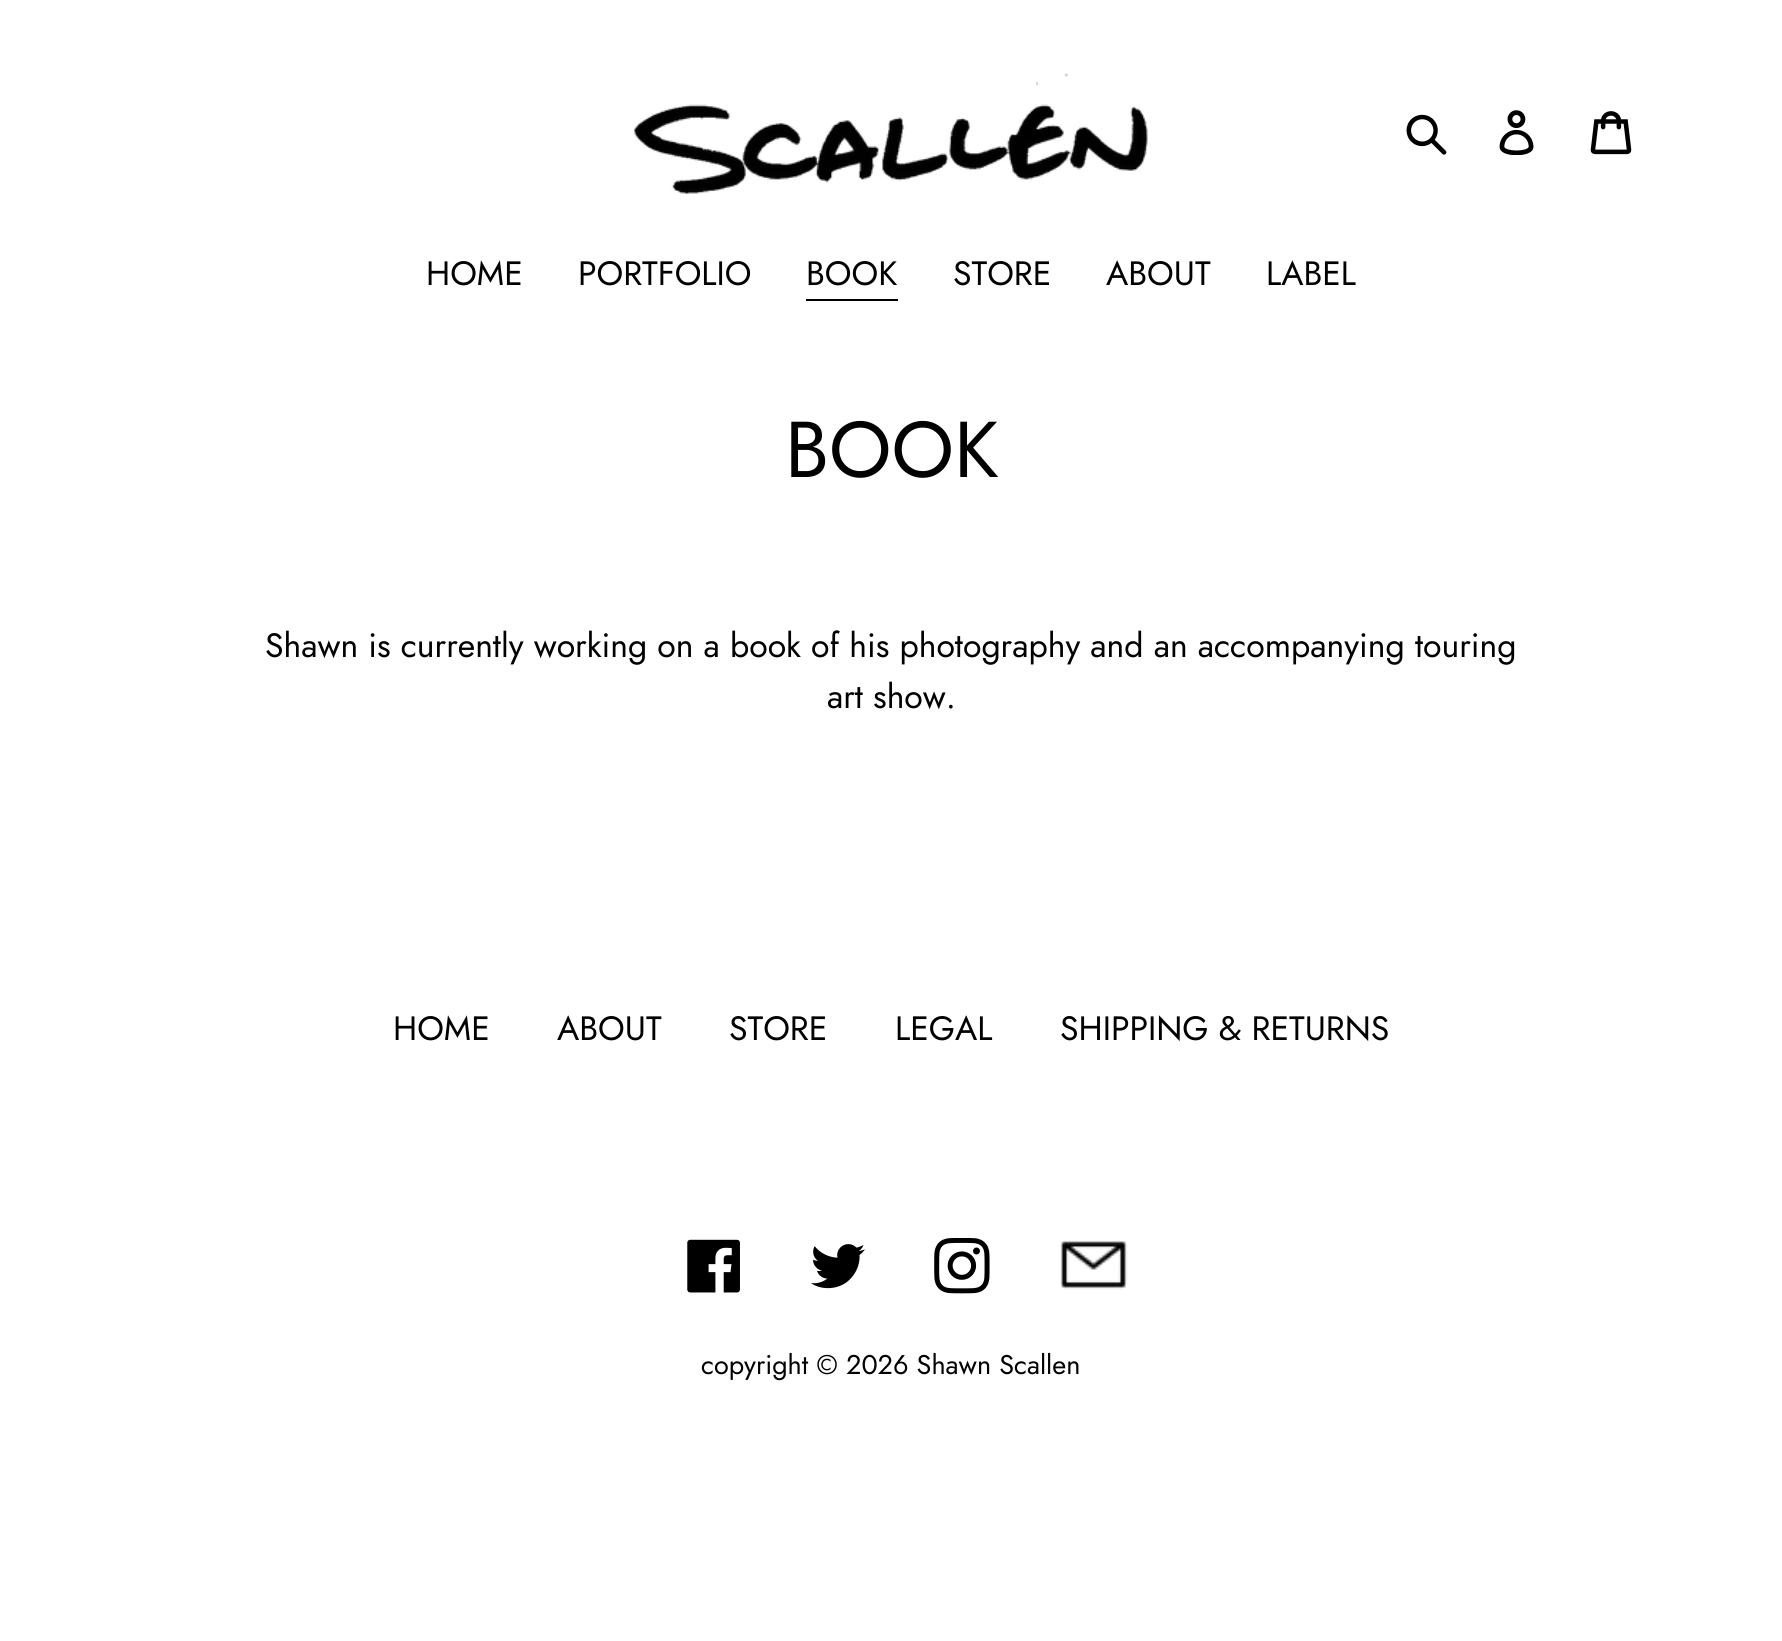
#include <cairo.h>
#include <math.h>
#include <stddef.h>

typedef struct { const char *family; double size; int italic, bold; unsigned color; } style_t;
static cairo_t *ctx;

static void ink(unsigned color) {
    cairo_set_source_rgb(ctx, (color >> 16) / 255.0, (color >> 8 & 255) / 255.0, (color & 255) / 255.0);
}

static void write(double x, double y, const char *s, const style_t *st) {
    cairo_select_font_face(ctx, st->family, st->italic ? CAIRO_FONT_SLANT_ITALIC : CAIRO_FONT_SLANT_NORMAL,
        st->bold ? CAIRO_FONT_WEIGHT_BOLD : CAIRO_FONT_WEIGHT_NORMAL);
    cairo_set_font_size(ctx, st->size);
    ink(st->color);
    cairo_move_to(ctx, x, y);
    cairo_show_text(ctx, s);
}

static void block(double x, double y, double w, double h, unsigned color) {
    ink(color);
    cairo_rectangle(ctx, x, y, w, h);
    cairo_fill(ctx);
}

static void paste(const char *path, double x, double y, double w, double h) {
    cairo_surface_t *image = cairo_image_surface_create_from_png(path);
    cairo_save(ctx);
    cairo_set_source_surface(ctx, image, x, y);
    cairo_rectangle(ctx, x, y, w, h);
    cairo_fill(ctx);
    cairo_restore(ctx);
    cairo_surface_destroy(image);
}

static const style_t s1 = {"Jost", 33.75, 0, 0, 0x000000};
static const style_t s2 = {"Jost", 79, 0, 0, 0x000000};
static const style_t s3 = {"Jost", 27, 0, 0, 0x000000};

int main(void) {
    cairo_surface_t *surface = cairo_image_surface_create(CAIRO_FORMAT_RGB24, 1782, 1641);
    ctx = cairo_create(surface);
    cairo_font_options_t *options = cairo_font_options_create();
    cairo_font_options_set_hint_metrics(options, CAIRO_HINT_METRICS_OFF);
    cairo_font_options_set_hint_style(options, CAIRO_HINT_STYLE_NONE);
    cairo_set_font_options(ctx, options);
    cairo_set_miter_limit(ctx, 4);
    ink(0xffffff);
    cairo_paint(ctx);
    paste("pic1.png", 634, 73, 514, 121);
    paste("pic2.png", 1406, 114, 41, 41);
    paste("pic3.png", 1499, 110, 35, 45);
    paste("pic4.png", 1590, 111, 42, 44);
    write(426, 285, "HOME", &s1);
    write(578, 285, "PORTFOLIO", &s1);
    write(806, 285, "BOOK", &s1);
    block(806, 299, 92, 2, 0x000000);
    write(953, 285, "STORE", &s1);
    write(1106, 285, "ABOUT", &s1);
    write(1266, 285, "LABEL", &s1);
    write(785, 477, "BOOK", &s2);
    write(265, 657, "Shawn is currently working on a book of his photography and an accompanying touring", &s1);
    write(827, 708, "art show.", &s1);
    write(393, 1040, "HOME", &s1);
    write(557, 1040, "ABOUT", &s1);
    write(729, 1040, "STORE", &s1);
    write(895, 1040, "LEGAL", &s1);
    write(1060, 1040, "SHIPPING & RETURNS", &s1);
    paste("pic5.png", 687, 1239, 53, 54);
    paste("pic6.png", 811, 1244, 54, 45);
    paste("pic7.png", 934, 1238, 56, 56);
    paste("pic8.png", 1060, 1240, 68, 50);
    write(701, 1374, "copyright © 2026 Shawn Scallen", &s3);
    cairo_surface_write_to_png(surface, "screenshot.png");
    cairo_font_options_destroy(options);
    cairo_destroy(ctx);
    cairo_surface_destroy(surface);
    return 0;
}
